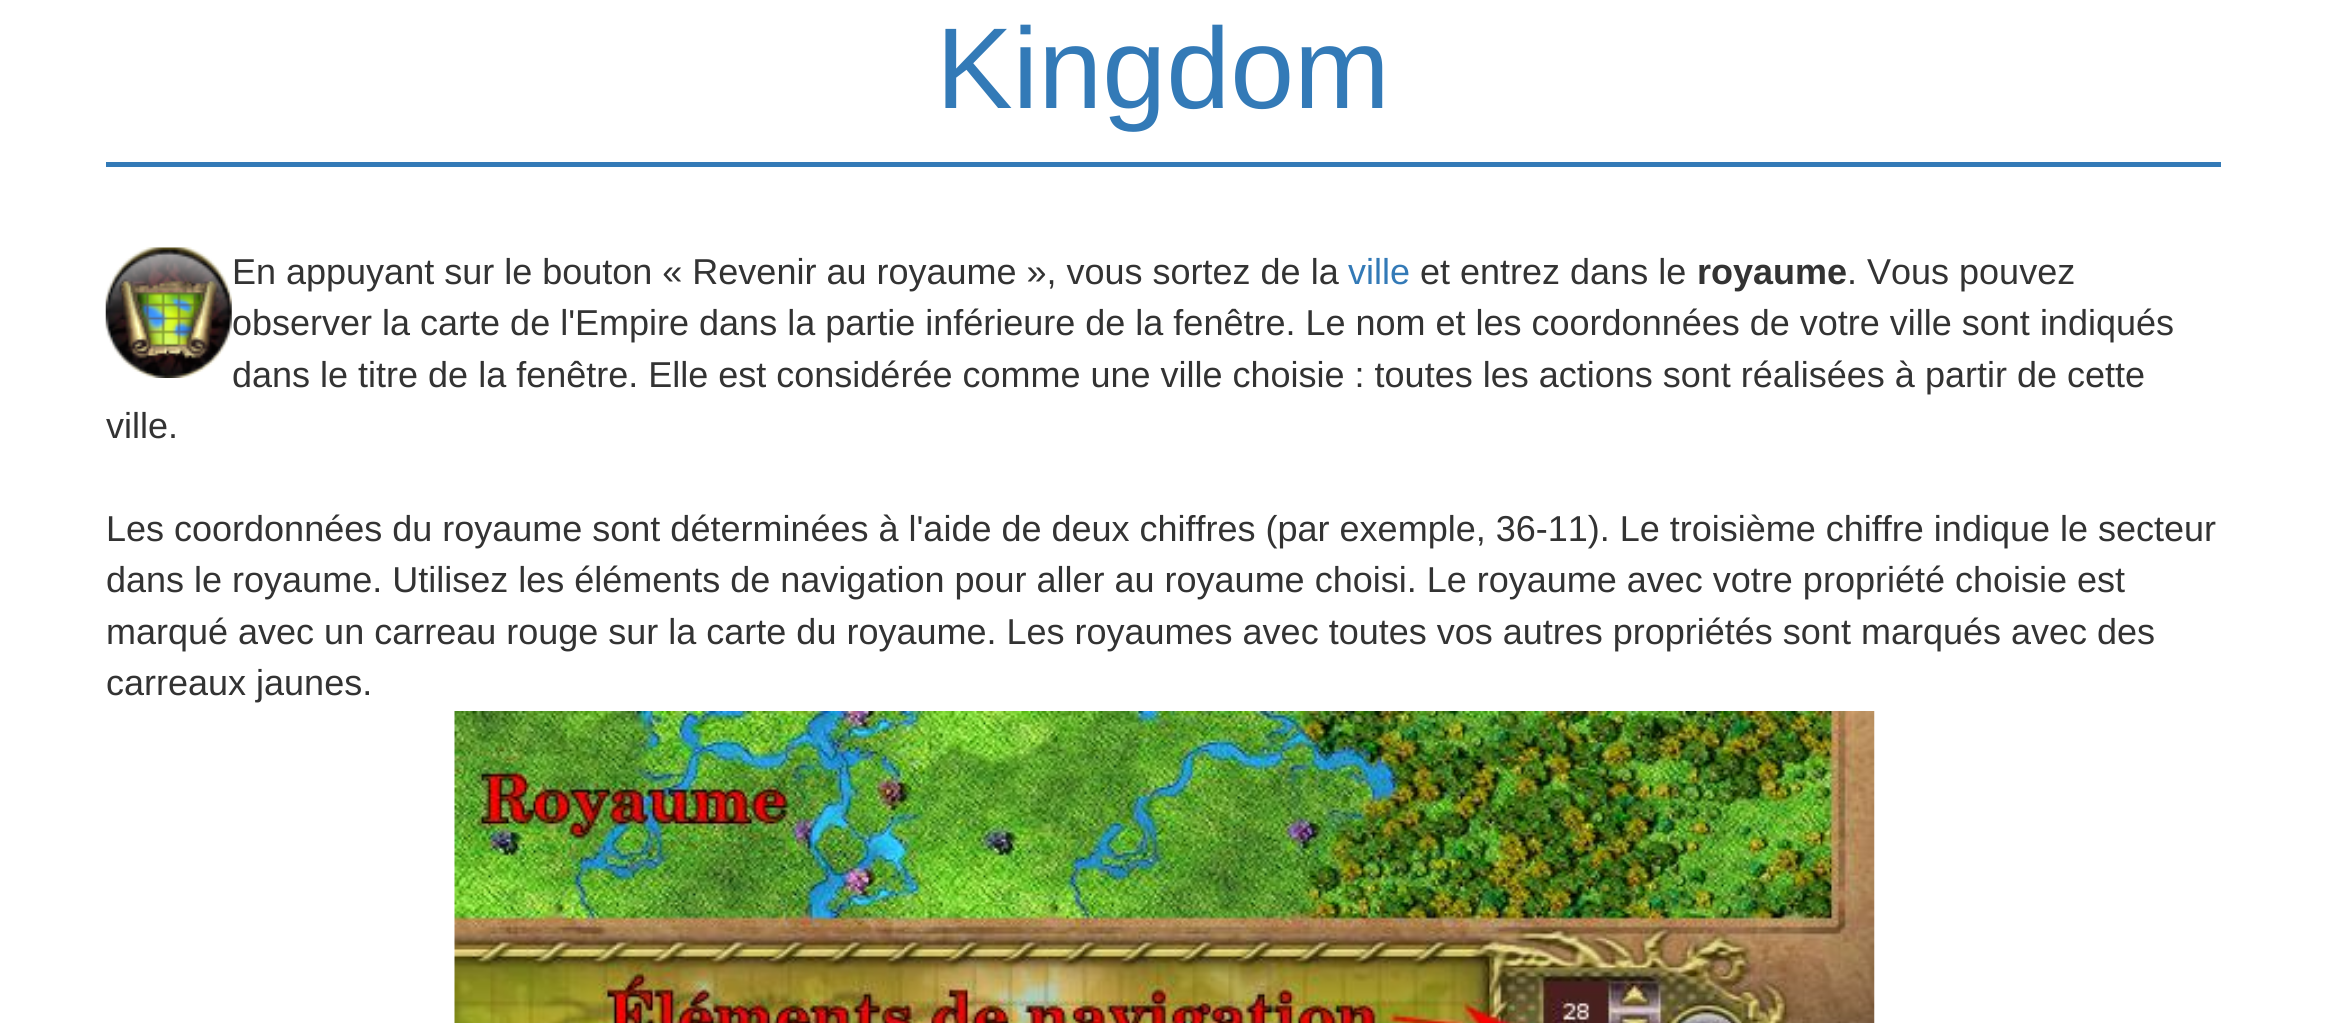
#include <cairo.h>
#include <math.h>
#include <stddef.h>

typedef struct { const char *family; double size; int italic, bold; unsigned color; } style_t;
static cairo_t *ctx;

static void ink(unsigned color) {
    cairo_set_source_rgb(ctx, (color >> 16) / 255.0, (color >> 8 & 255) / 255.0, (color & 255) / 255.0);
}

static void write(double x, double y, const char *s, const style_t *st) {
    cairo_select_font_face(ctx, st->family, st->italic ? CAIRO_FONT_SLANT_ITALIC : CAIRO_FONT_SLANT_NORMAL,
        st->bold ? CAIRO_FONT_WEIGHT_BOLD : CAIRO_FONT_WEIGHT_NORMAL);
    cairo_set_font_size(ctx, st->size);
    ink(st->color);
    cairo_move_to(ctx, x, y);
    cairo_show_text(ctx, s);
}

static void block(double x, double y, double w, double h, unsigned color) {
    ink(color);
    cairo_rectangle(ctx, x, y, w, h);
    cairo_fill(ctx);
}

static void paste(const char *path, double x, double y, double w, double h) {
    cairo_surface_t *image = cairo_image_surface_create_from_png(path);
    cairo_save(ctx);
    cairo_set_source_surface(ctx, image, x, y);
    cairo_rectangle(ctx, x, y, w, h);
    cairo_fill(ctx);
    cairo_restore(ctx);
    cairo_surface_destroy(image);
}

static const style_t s1 = {"Liberation Sans", 115, 0, 0, 0x337ab7};
static const style_t s2 = {"Liberation Sans", 36, 0, 0, 0x333333};
static const style_t s3 = {"Liberation Sans", 36, 0, 0, 0x337ab7};
static const style_t s4 = {"Liberation Sans", 36, 0, 1, 0x333333};

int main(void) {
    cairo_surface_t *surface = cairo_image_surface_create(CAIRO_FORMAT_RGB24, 2325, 1023);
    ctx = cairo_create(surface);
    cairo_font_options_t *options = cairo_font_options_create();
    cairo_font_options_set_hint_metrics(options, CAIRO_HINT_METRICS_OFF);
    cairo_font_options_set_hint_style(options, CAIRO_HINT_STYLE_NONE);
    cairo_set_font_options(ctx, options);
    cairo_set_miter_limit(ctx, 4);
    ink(0xffffff);
    cairo_paint(ctx);
    block(106, 162, 2115, 5, 0x337ab7);
    write(936, 108, "Kingdom", &s1);
    paste("pic1.png", 105, 247, 127, 131);
    write(232, 284, "En appuyant sur le bouton « Revenir au royaume », vous sortez de la", &s2);
    write(1348, 284, "ville", &s3);
    write(1420, 284, "et entrez dans le", &s2);
    write(1697, 284, "royaume", &s4);
    write(1847, 284, ". Vous pouvez", &s2);
    write(232, 335, "observer la carte de l'Empire dans la partie inférieure de la fenêtre. Le nom et les coordonnées de votre ville sont indiqués", &s2);
    write(232, 387, "dans le titre de la fenêtre. Elle est considérée comme une ville choisie : toutes les actions sont réalisées à partir de cette", &s2);
    write(106, 438, "ville.", &s2);
    write(106, 541, "Les coordonnées du royaume sont déterminées à l'aide de deux chiffres (par exemple, 36-11). Le troisième chiffre indique le secteur", &s2);
    write(106, 592, "dans le royaume. Utilisez les éléments de navigation pour aller au royaume choisi. Le royaume avec votre propriété choisie est", &s2);
    write(106, 644, "marqué avec un carreau rouge sur la carte du royaume. Les royaumes avec toutes vos autres propriétés sont marqués avec des", &s2);
    write(106, 695, "carreaux jaunes.", &s2);
    paste("pic2.png", 454, 711, 1421, 312);
    cairo_surface_write_to_png(surface, "screenshot.png");
    cairo_font_options_destroy(options);
    cairo_destroy(ctx);
    cairo_surface_destroy(surface);
    return 0;
}
